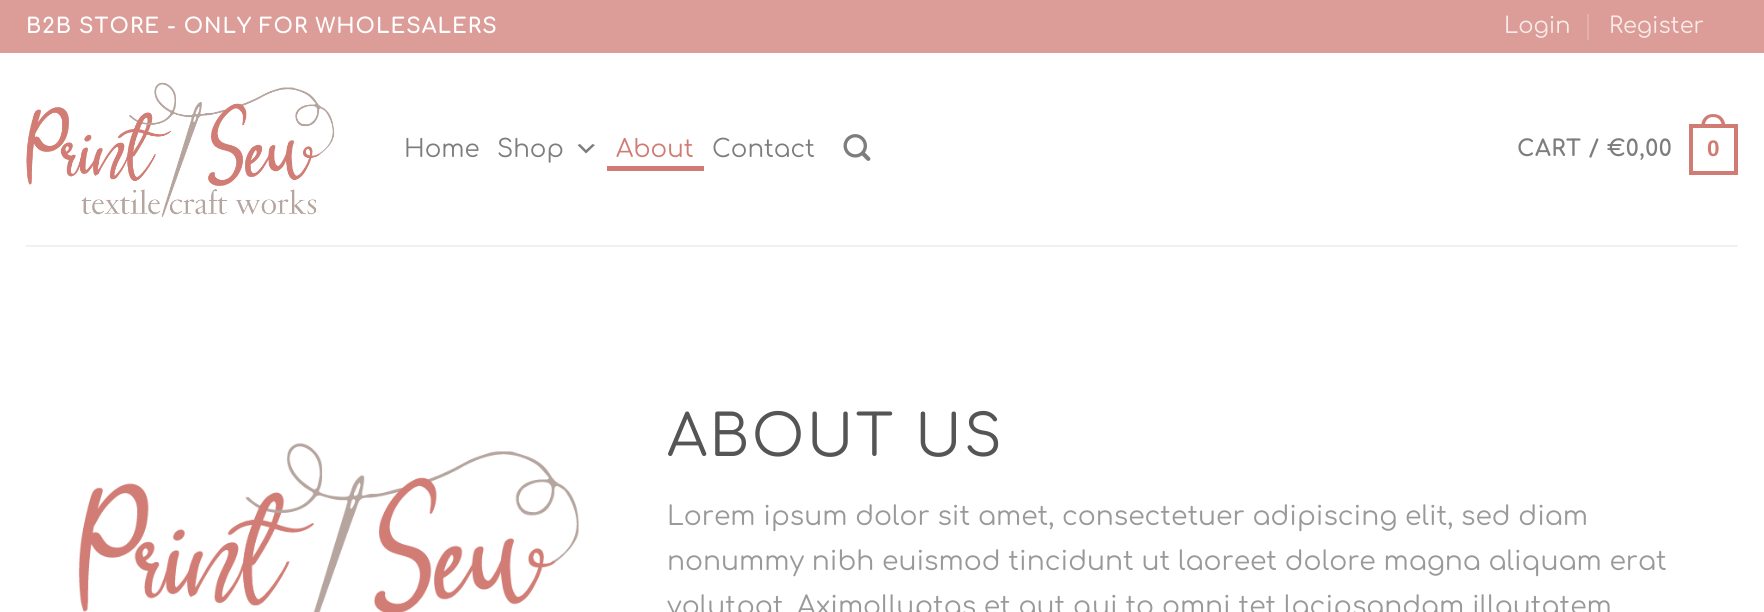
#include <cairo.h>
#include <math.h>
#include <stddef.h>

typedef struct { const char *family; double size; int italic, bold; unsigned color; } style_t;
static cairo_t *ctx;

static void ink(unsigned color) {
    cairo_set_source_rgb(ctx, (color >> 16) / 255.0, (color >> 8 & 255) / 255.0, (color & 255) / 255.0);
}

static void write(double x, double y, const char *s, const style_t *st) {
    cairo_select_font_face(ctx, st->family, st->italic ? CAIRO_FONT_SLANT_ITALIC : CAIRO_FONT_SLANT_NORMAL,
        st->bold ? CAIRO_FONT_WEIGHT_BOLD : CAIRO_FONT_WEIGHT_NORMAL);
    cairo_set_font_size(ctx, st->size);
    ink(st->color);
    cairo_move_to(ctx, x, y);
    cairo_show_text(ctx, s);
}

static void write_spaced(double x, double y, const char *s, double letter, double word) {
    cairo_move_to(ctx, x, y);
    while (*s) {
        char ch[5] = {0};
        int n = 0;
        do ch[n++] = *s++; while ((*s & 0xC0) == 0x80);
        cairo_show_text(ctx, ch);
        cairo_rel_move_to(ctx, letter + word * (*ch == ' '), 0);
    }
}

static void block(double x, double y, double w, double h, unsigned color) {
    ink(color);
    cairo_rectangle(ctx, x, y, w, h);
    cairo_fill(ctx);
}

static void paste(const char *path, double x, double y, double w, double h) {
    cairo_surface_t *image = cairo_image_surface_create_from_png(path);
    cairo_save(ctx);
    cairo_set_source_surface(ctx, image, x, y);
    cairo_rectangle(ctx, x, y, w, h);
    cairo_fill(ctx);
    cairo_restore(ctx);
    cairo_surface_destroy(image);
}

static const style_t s1 = {"Comfortaa", 22.5, 0, 0, 0xf8ebea};
static const style_t s2 = {"Comfortaa", 24.5, 0, 0, 0x7d7d7d};
static const style_t s3 = {"Comfortaa", 24.5, 0, 0, 0xd07b74};
static const style_t s4 = {"Comfortaa", 26.6, 0, 0, 0x999999};

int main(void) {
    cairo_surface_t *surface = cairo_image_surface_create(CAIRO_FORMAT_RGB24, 1764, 612);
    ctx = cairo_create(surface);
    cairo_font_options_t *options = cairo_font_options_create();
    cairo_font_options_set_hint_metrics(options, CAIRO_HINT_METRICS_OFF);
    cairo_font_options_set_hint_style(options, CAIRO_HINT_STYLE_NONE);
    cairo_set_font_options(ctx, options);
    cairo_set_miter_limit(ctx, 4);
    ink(0xffffff);
    cairo_paint(ctx);
    block(0, 0, 1764, 53, 0xdc9c97);
    cairo_select_font_face(ctx, "Comfortaa", CAIRO_FONT_SLANT_NORMAL, CAIRO_FONT_WEIGHT_BOLD);
    cairo_set_font_size(ctx, 21);
    ink(0xffffff);
    write_spaced(26, 33, "B2B STORE - ONLY FOR WHOLESALERS", 1.05, 0);
    write(1504, 33, "Login", &s1);
    block(1587, 14, 2, 26, 0xe3b0ac);
    write(1609, 33, "Register", &s1);
    paste("pic1.png", 26, 82, 309, 135);
    write(404, 157, "Home", &s2);
    write(497, 157, "Shop", &s2);
    cairo_new_path(ctx);
    cairo_move_to(ctx, 580, 144);
    cairo_line_to(ctx, 586, 150);
    cairo_line_to(ctx, 592.5, 144);
    cairo_line_to(ctx, 595, 145);
    cairo_line_to(ctx, 586, 153.5);
    cairo_line_to(ctx, 577.5, 145);
    cairo_close_path(ctx);
    cairo_fill(ctx);
    block(607, 166, 97, 5, 0xd07b74);
    write(616, 157, "About", &s3);
    write(712, 157, "Contact", &s2);
    paste("pic2.png", 843, 134, 28, 27);
    cairo_select_font_face(ctx, "Comfortaa", CAIRO_FONT_SLANT_NORMAL, CAIRO_FONT_WEIGHT_BOLD);
    cairo_set_font_size(ctx, 22.5);
    write_spaced(1517, 156, "CART / €0,00", 0.5, 0);
    cairo_rectangle(ctx, 1691, 126, 45, 47);
    ink(0xd07b74);
    cairo_set_line_width(ctx, 4);
    cairo_stroke(ctx);
    cairo_set_fill_rule(ctx, CAIRO_FILL_RULE_EVEN_ODD);
    cairo_new_path(ctx);
    cairo_move_to(ctx, 1713, 114);
    cairo_curve_to(ctx, 1721.5, 114, 1725.5, 120, 1725.5, 128);
    cairo_line_to(ctx, 1701, 128);
    cairo_curve_to(ctx, 1701, 120, 1705, 114, 1713, 114);
    cairo_close_path(ctx);
    cairo_move_to(ctx, 1713, 117);
    cairo_curve_to(ctx, 1719.5, 117, 1722, 122, 1722, 128);
    cairo_line_to(ctx, 1704.5, 128);
    cairo_curve_to(ctx, 1704.5, 122, 1707, 117, 1713, 117);
    cairo_close_path(ctx);
    cairo_fill(ctx);
    cairo_select_font_face(ctx, "Liberation Sans", CAIRO_FONT_SLANT_NORMAL, CAIRO_FONT_WEIGHT_BOLD);
    write_spaced(1707, 156, "0", 0.5, 0);
    block(26, 245, 1712, 2, 0xf1f1f1);
    paste("pic3.png", 78, 443, 501, 169);
    cairo_select_font_face(ctx, "Comfortaa", CAIRO_FONT_SLANT_NORMAL, CAIRO_FONT_WEIGHT_NORMAL);
    cairo_set_font_size(ctx, 57);
    ink(0x555555);
    write_spaced(667, 456, "ABOUT US", 2.5, 0);
    write(667, 525, "Lorem ipsum dolor sit amet, consectetuer adipiscing elit, sed diam", &s4);
    write(667, 570, "nonummy nibh euismod tincidunt ut laoreet dolore magna aliquam erat", &s4);
    write(667, 615, "volutpat. Aximolluptas et aut qui to omni tet lacipsandam illautatem", &s4);
    cairo_surface_write_to_png(surface, "screenshot.png");
    cairo_font_options_destroy(options);
    cairo_destroy(ctx);
    cairo_surface_destroy(surface);
    return 0;
}
